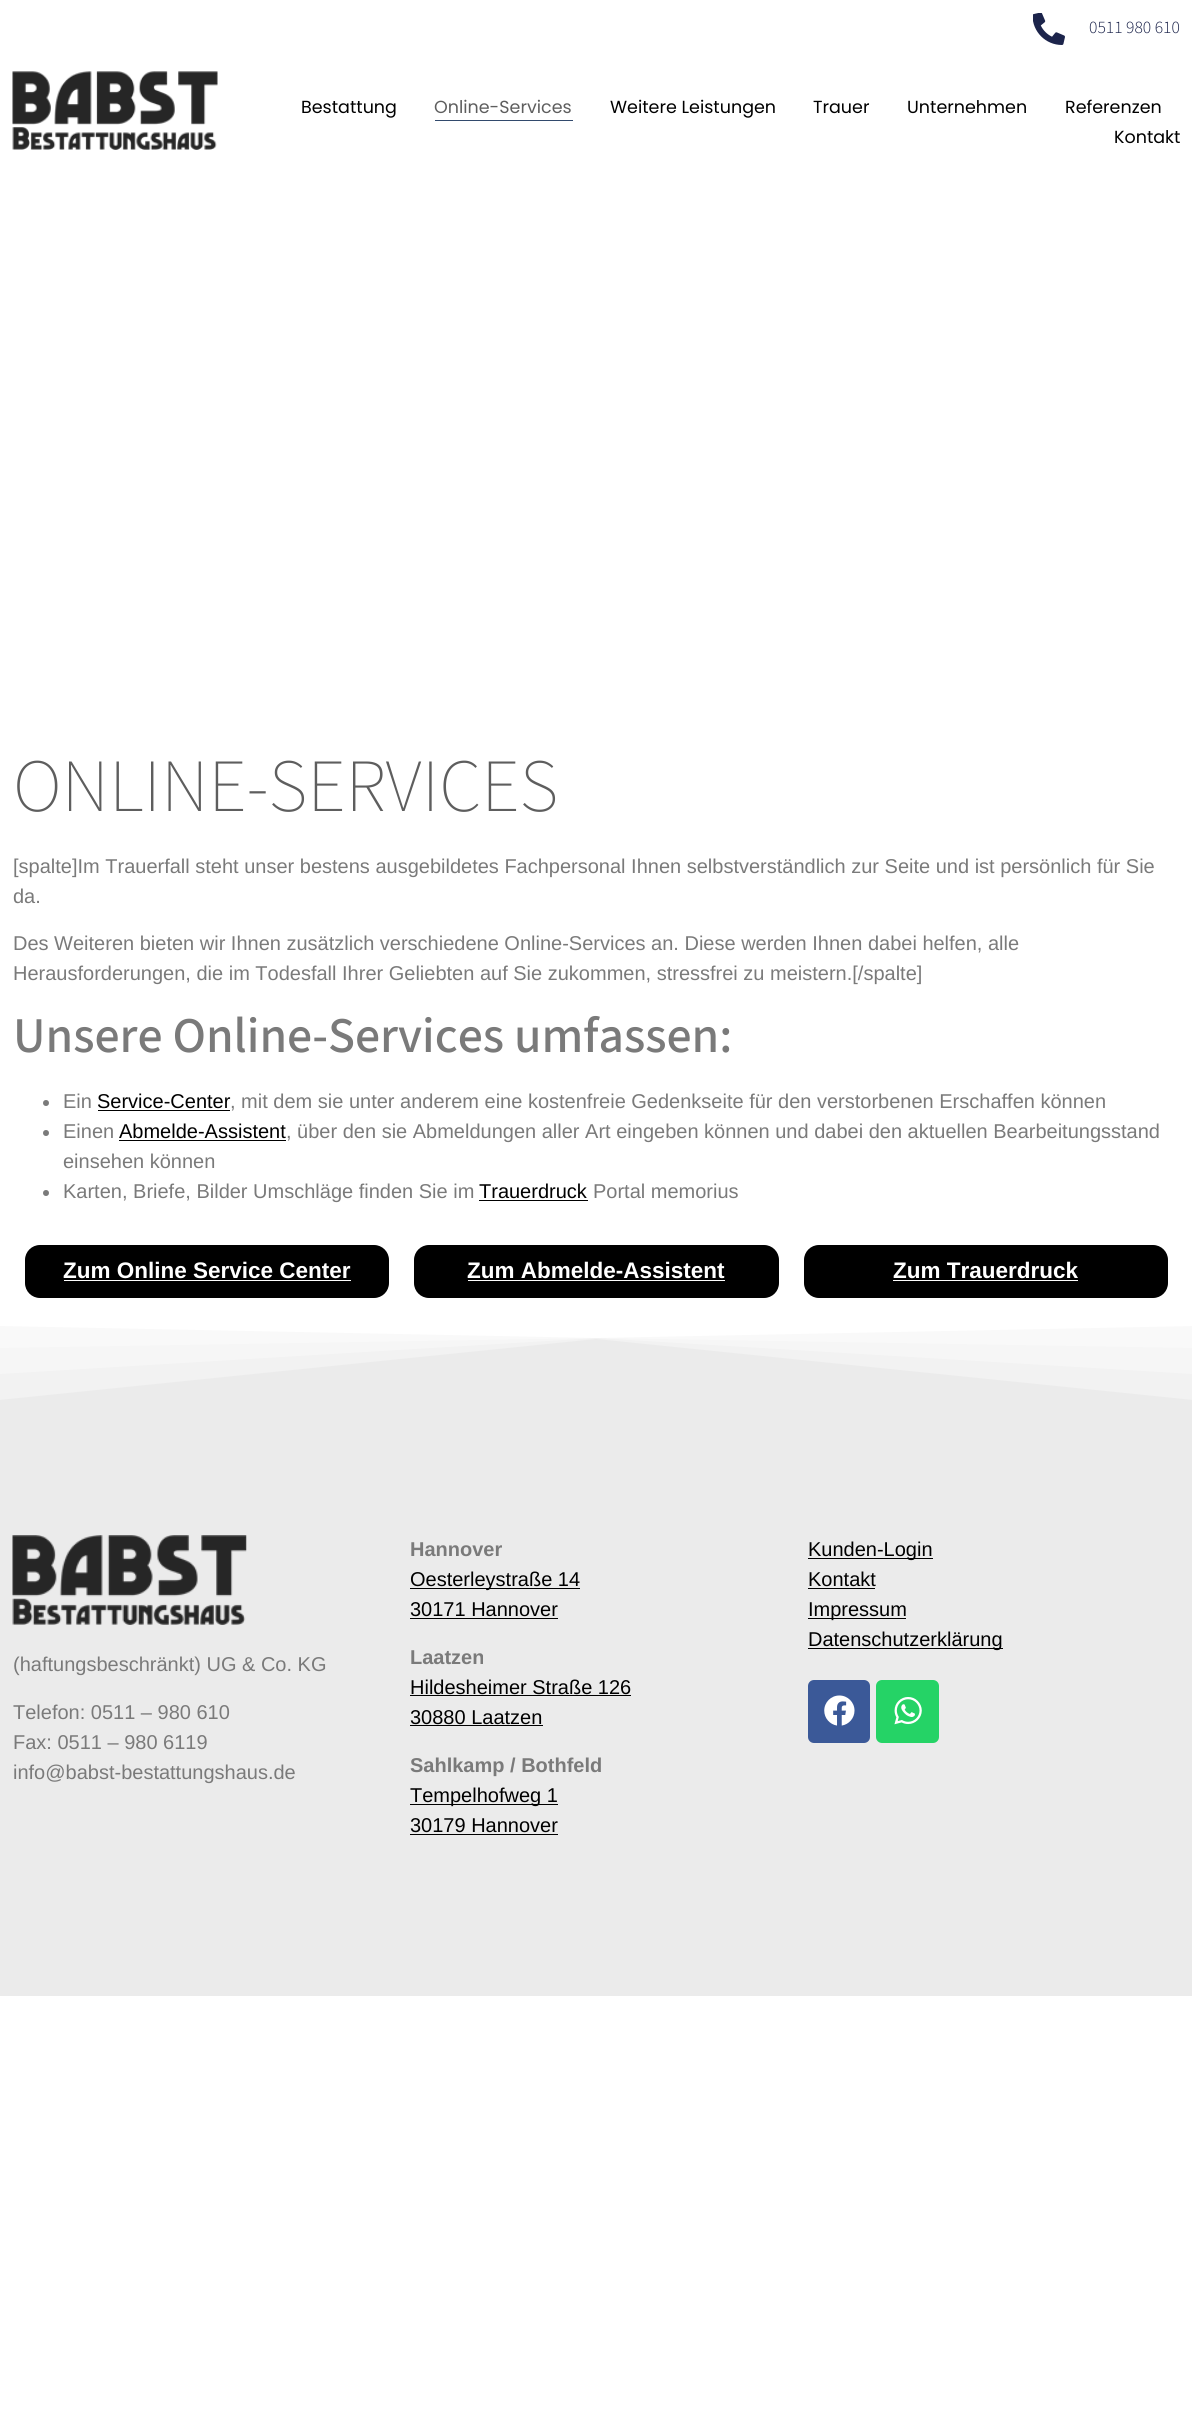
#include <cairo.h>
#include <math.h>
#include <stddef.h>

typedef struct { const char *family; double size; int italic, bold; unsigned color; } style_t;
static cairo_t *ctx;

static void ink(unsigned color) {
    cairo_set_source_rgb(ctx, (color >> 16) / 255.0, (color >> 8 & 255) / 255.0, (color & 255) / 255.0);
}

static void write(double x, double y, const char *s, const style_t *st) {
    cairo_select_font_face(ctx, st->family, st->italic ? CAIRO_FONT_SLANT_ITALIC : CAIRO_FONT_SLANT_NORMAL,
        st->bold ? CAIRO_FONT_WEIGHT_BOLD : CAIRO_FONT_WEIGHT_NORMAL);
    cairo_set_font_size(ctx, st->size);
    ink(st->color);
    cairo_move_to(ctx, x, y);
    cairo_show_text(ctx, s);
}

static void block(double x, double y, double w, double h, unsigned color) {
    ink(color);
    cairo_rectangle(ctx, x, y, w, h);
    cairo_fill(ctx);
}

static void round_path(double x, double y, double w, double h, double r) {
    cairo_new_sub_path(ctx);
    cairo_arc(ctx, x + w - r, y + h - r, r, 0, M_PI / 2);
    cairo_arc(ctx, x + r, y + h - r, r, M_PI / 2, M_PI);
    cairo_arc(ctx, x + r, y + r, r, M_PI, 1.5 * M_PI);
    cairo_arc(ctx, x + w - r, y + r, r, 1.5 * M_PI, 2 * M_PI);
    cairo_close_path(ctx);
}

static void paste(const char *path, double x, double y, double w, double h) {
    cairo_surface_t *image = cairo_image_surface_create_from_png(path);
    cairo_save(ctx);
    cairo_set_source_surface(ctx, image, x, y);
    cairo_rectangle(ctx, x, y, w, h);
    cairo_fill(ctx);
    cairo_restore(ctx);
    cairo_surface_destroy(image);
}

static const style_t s1 = {"Source Sans 3 Light", 17.5, 0, 0, 0x1c244b};
static const style_t s2 = {"Poppins", 17.5, 0, 0, 0x000000};
static const style_t s3 = {"Poppins", 17.5, 0, 0, 0x5e5e5e};
static const style_t s4 = {"Source Sans 3 ExtraLight", 75, 0, 0, 0x5e5e5e};
static const style_t s5 = {"Liberation Sans", 20, 0, 0, 0x7a7a7a};
static const style_t s6 = {"Source Sans 3 Medium", 50, 0, 0, 0x7a7a7a};
static const style_t s7 = {"Liberation Sans", 20, 0, 0, 0x000000};
static const style_t s8 = {"Liberation Sans", 22.5, 0, 1, 0xffffff};
static const style_t s9 = {"Liberation Sans", 20, 0, 1, 0x7a7a7a};

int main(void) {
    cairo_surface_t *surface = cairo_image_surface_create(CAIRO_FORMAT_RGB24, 1192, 2429);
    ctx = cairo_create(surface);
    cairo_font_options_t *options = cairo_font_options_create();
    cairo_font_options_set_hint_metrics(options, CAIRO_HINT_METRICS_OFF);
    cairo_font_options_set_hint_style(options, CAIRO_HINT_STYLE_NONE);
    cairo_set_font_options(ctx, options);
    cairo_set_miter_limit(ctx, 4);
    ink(0xffffff);
    cairo_paint(ctx);
    paste("pic1.png", 1033, 13, 32, 32);
    write(1089, 33, "0511 980 610", &s1);
    paste("pic2.png", 12, 71, 206, 79);
    write(301, 113, "Bestattung", &s2);
    write(434, 113, "Online-Services", &s3);
    block(435, 120, 138, 1, 0x324a6d);
    write(610, 113, "Weitere Leistungen", &s2);
    write(813, 113, "Trauer", &s2);
    write(907, 113, "Unternehmen", &s2);
    write(1065, 113, "Referenzen", &s2);
    write(1114, 143, "Kontakt", &s2);
    write(13, 811, "ONLINE-SERVICES", &s4);
    write(13, 873, "[spalte]Im Trauerfall steht unser bestens ausgebildetes Fachpersonal Ihnen selbstverständlich zur Seite und ist persönlich für Sie", &s5);
    write(13, 903, "da.", &s5);
    write(13, 950, "Des Weiteren bieten wir Ihnen zusätzlich verschiedene Online-Services an. Diese werden Ihnen dabei helfen, alle", &s5);
    write(13, 980, "Herausforderungen, die im Todesfall Ihrer Geliebten auf Sie zukommen, stressfrei zu meistern.[/spalte]", &s5);
    write(13, 1052, "Unsere Online-Services umfassen:", &s6);
    cairo_new_path(ctx);
    cairo_arc(ctx, 46, 1103, 3, 0, 2 * M_PI);
    cairo_fill(ctx);
    write(63, 1108, "Ein", &s5);
    write(97, 1108, "Service-Center", &s7);
    block(98, 1110, 132, 1, 0x000000);
    write(230, 1108, ", mit dem sie unter anderem eine kostenfreie Gedenkseite für den verstorbenen Erschaffen können", &s5);
    cairo_new_path(ctx);
    cairo_arc(ctx, 46, 1133, 3, 0, 2 * M_PI);
    cairo_fill(ctx);
    write(63, 1138, "Einen", &s5);
    write(119, 1138, "Abmelde-Assistent", &s7);
    block(119, 1140, 167, 1, 0x000000);
    write(286, 1138, ", über den sie Abmeldungen aller Art eingeben können und dabei den aktuellen Bearbeitungsstand", &s5);
    write(63, 1168, "einsehen können", &s5);
    cairo_new_path(ctx);
    cairo_arc(ctx, 46, 1193, 3, 0, 2 * M_PI);
    cairo_fill(ctx);
    write(63, 1198, "Karten, Briefe, Bilder Umschläge finden Sie im", &s5);
    write(479, 1198, "Trauerdruck", &s7);
    block(479, 1200, 109, 1, 0x000000);
    write(593, 1198, "Portal memorius", &s5);
    ink(0x000000);
    round_path(25, 1245, 364, 53, 15);
    cairo_fill(ctx);
    write(63, 1278, "Zum Online Service Center", &s8);
    block(64, 1280, 287, 1, 0xffffff);
    ink(0x000000);
    round_path(414, 1245, 365, 53, 15);
    cairo_fill(ctx);
    write(467, 1278, "Zum Abmelde-Assistent", &s8);
    block(468, 1280, 257, 1, 0xffffff);
    ink(0x000000);
    round_path(804, 1245, 364, 53, 15);
    cairo_fill(ctx);
    write(893, 1278, "Zum Trauerdruck", &s8);
    block(893, 1280, 185, 1, 0xffffff);
    block(0, 1326, 1192, 670, 0xebebeb);
    cairo_set_source_rgba(ctx, 1, 1, 1, 0.33);
    cairo_new_path(ctx);
    cairo_move_to(ctx, -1, 1321);
    cairo_line_to(ctx, -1, 1400);
    cairo_line_to(ctx, 596, 1339);
    cairo_line_to(ctx, 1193, 1400);
    cairo_line_to(ctx, 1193, 1321);
    cairo_close_path(ctx);
    cairo_fill(ctx);
    cairo_new_path(ctx);
    cairo_move_to(ctx, -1, 1321);
    cairo_line_to(ctx, -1, 1374);
    cairo_line_to(ctx, 596, 1338);
    cairo_line_to(ctx, 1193, 1374);
    cairo_line_to(ctx, 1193, 1321);
    cairo_close_path(ctx);
    cairo_fill(ctx);
    cairo_new_path(ctx);
    cairo_move_to(ctx, -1, 1321);
    cairo_line_to(ctx, -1, 1348);
    cairo_line_to(ctx, 596, 1338);
    cairo_line_to(ctx, 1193, 1348);
    cairo_line_to(ctx, 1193, 1321);
    cairo_close_path(ctx);
    cairo_fill(ctx);
    ink(0xffffff);
    cairo_new_path(ctx);
    cairo_move_to(ctx, -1, 1321);
    cairo_line_to(ctx, -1, 1326);
    cairo_line_to(ctx, 596, 1338);
    cairo_line_to(ctx, 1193, 1326);
    cairo_line_to(ctx, 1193, 1321);
    cairo_close_path(ctx);
    cairo_fill(ctx);
    paste("pic3.png", 12, 1535, 235, 90);
    write(13, 1671, "(haftungsbeschränkt) UG & Co. KG", &s5);
    write(13, 1719, "Telefon: 0511 – 980 610", &s5);
    write(13, 1749, "Fax: 0511 – 980 6119", &s5);
    write(13, 1779, "info@babst-bestattungshaus.de", &s5);
    write(410, 1556, "Hannover", &s9);
    block(410, 1588, 170, 1, 0x000000);
    write(410, 1586, "Oesterleystraße 14", &s7);
    write(410, 1616, "30171 Hannover", &s7);
    block(410, 1618, 148, 1, 0x000000);
    write(410, 1664, "Laatzen", &s9);
    write(410, 1694, "Hildesheimer Straße 126", &s7);
    block(410, 1695, 221, 1, 0x000000);
    write(410, 1724, "30880 Laatzen", &s7);
    block(410, 1725, 133, 1, 0x000000);
    write(410, 1772, "Sahlkamp / Bothfeld", &s9);
    block(410, 1804, 148, 1, 0x000000);
    write(410, 1802, "Tempelhofweg 1", &s7);
    write(410, 1832, "30179 Hannover", &s7);
    block(410, 1834, 148, 1, 0x000000);
    block(808, 1558, 125, 1, 0x000000);
    write(808, 1556, "Kunden-Login", &s7);
    write(808, 1586, "Kontakt", &s7);
    block(808, 1588, 67, 1, 0x000000);
    block(808, 1618, 98, 1, 0x000000);
    write(808, 1616, "Impressum", &s7);
    block(808, 1648, 195, 1, 0x000000);
    write(808, 1646, "Datenschutzerklärung", &s7);
    ink(0x3b5998);
    round_path(808, 1680, 62, 63, 6);
    cairo_fill(ctx);
    paste("pic4.png", 824, 1695, 31, 31);
    ink(0x25d366);
    round_path(876, 1680, 63, 63, 6);
    cairo_fill(ctx);
    paste("pic5.png", 894, 1697, 28, 28);
    cairo_surface_write_to_png(surface, "screenshot.png");
    cairo_font_options_destroy(options);
    cairo_destroy(ctx);
    cairo_surface_destroy(surface);
    return 0;
}
